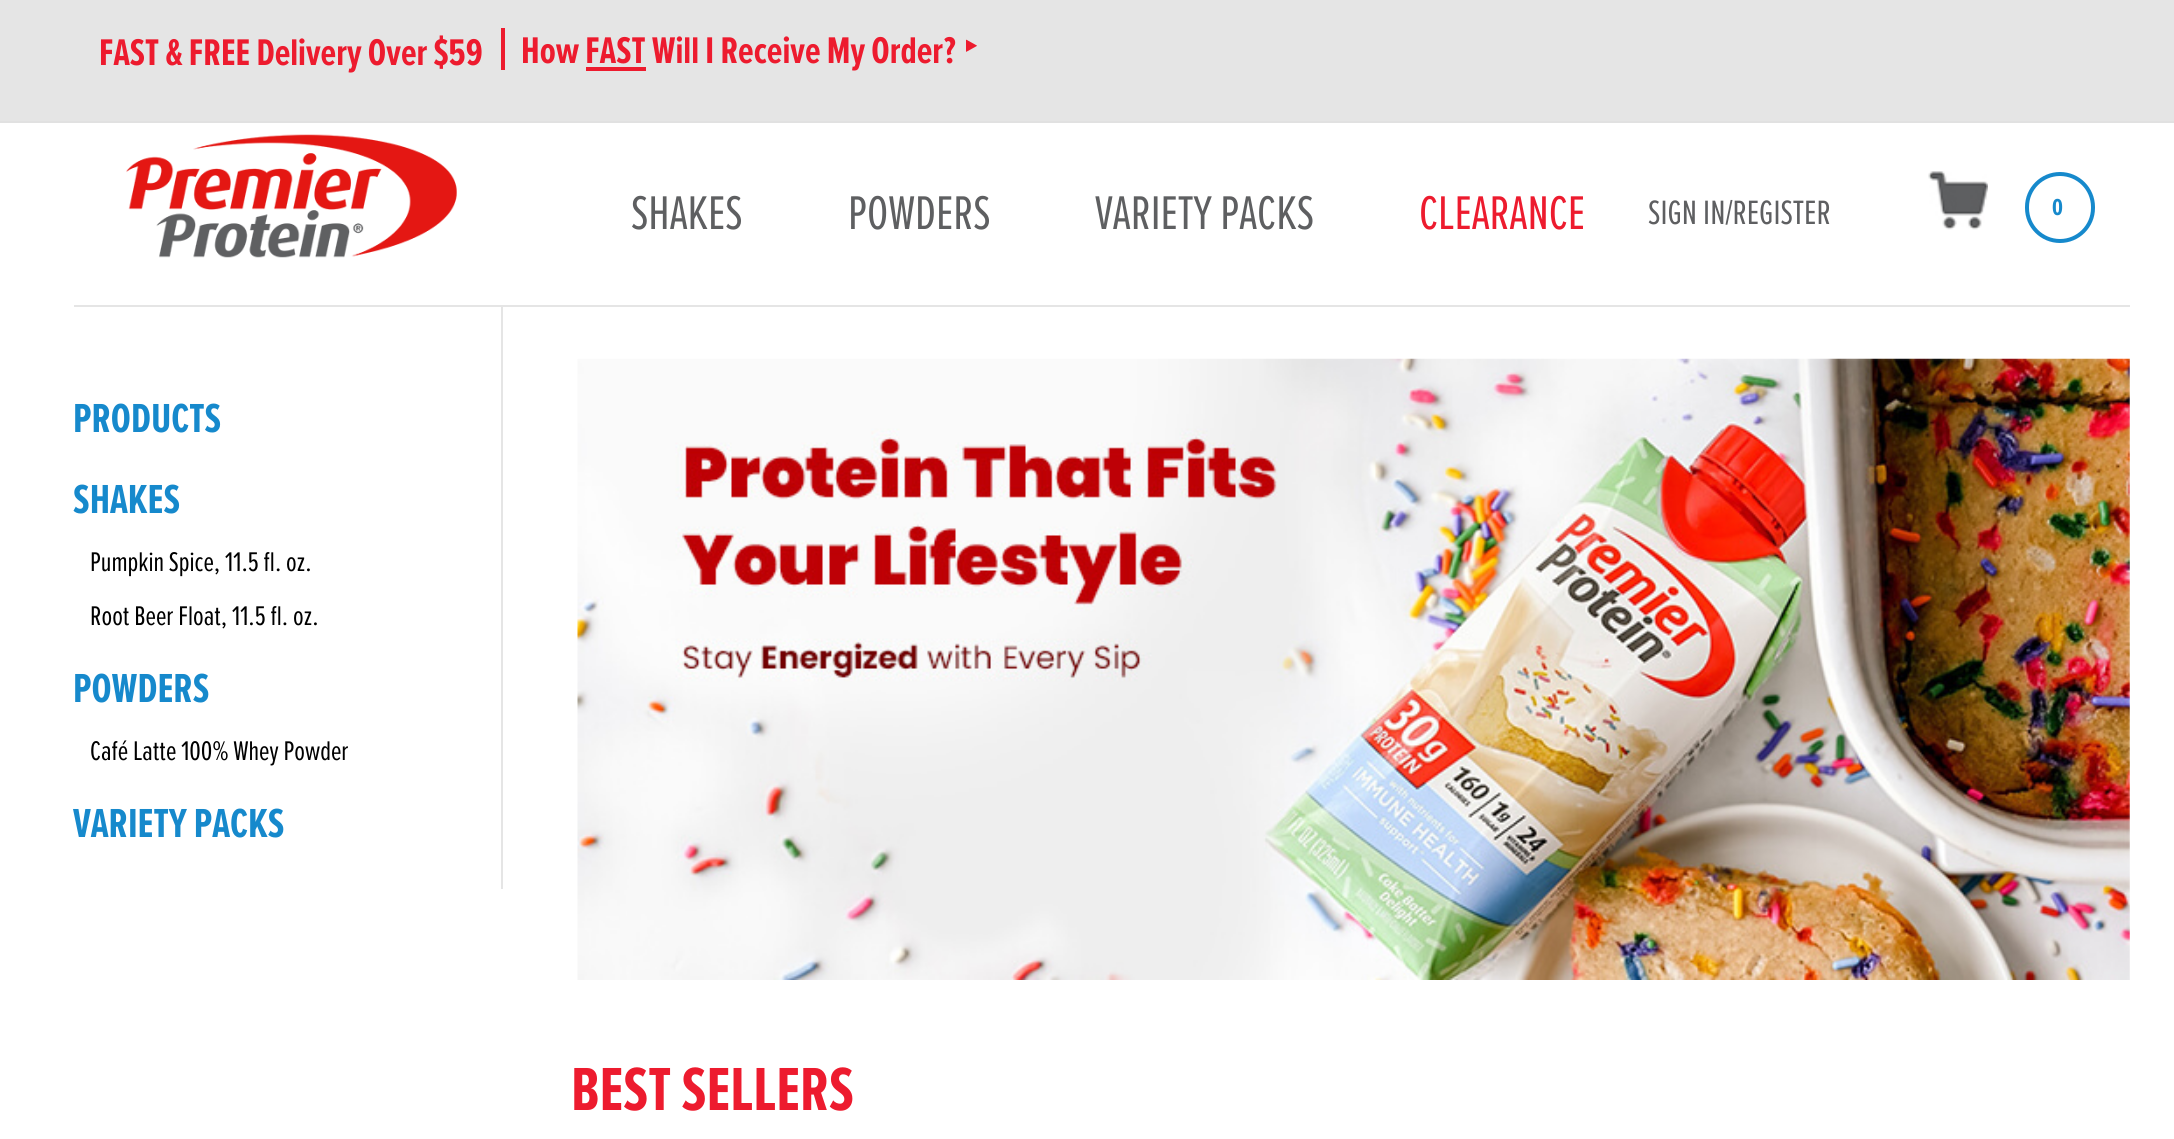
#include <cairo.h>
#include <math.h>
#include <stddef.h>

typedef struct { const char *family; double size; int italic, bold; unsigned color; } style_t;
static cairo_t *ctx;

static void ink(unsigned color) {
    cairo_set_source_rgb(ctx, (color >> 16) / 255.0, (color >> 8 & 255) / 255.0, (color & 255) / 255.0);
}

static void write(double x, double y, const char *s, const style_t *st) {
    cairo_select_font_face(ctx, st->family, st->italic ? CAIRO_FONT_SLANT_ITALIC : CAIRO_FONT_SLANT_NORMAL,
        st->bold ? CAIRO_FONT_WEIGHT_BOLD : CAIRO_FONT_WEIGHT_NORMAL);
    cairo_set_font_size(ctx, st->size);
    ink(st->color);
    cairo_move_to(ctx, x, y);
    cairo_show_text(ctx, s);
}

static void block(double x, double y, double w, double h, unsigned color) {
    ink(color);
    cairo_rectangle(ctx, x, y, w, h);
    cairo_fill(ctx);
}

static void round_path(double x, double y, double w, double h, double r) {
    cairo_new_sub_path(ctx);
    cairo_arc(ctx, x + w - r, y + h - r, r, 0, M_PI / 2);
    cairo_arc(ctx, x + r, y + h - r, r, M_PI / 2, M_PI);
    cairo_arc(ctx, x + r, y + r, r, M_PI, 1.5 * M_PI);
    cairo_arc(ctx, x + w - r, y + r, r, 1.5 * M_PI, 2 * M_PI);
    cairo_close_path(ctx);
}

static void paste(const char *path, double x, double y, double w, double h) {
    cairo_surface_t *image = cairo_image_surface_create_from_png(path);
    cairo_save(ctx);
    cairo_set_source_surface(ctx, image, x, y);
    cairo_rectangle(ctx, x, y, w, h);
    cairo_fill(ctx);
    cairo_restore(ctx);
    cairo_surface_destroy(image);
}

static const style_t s1 = {"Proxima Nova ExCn", 38.5, 0, 1, 0xed1b2e};
static const style_t s2 = {"Proxima Nova ExCn", 49, 0, 0, 0x5e5f61};
static const style_t s3 = {"Proxima Nova ExCn", 49, 0, 0, 0xed1b2e};
static const style_t s4 = {"Proxima Nova ExCn", 35, 0, 0, 0x5e5f61};
static const style_t s5 = {"Proxima Nova ExCn", 24, 0, 1, 0x1689cc};
static const style_t s6 = {"Proxima Nova ExCn", 42, 0, 1, 0x1689cc};
static const style_t s7 = {"Proxima Nova ExCn", 28, 0, 0, 0x000000};
static const style_t s8 = {"Proxima Nova ExCn", 63, 0, 1, 0xed1b2e};

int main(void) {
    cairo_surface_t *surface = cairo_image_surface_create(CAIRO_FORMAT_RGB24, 2174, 1139);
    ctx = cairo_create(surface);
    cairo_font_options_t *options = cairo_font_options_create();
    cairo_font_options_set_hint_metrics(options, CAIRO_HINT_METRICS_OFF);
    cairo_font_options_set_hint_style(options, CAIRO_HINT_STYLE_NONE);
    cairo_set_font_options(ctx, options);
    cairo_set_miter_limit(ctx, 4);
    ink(0xffffff);
    cairo_paint(ctx);
    block(0, 0, 2174, 121, 0xe5e5e5);
    block(0, 121, 2174, 2, 0xe1e1e1);
    write(99, 65, "FAST & FREE Delivery Over $59", &s1);
    block(501, 28, 4, 42, 0xed1b2e);
    write(521, 63, "How FAST Will I Receive My Order?", &s1);
    paste("pic1.png", 966, 39, 11, 13);
    block(586, 67, 60, 4, 0xed1b2e);
    paste("pic2.png", 126, 134, 331, 124);
    write(631, 229, "SHAKES", &s2);
    write(848, 229, "POWDERS", &s2);
    write(1095, 229, "VARIETY PACKS", &s2);
    write(1419, 229, "CLEARANCE", &s3);
    write(1648, 224, "SIGN IN/REGISTER", &s4);
    paste("pic3.png", 1928, 171, 60, 59);
    round_path(2027, 174, 66, 67, 33);
    ink(0x1689cc);
    cairo_set_line_width(ctx, 4);
    cairo_stroke(ctx);
    write(2052, 215, "0", &s5);
    block(74, 305, 428, 2, 0xe5e5e5);
    block(501, 305, 2, 584, 0xe5e5e5);
    write(73, 432, "PRODUCTS", &s6);
    write(73, 513, "SHAKES", &s6);
    write(90, 571, "Pumpkin Spice, 11.5 fl. oz.", &s7);
    write(90, 625, "Root Beer Float, 11.5 fl. oz.", &s7);
    write(73, 702, "POWDERS", &s6);
    write(90, 760, "Café Latte 100% Whey Powder", &s7);
    write(73, 837, "VARIETY PACKS", &s6);
    block(502, 305, 1628, 2, 0xe5e5e5);
    paste("pic4.png", 577, 358, 1553, 622);
    write(571, 1110, "BEST SELLERS", &s8);
    cairo_surface_write_to_png(surface, "screenshot.png");
    cairo_font_options_destroy(options);
    cairo_destroy(ctx);
    cairo_surface_destroy(surface);
    return 0;
}
